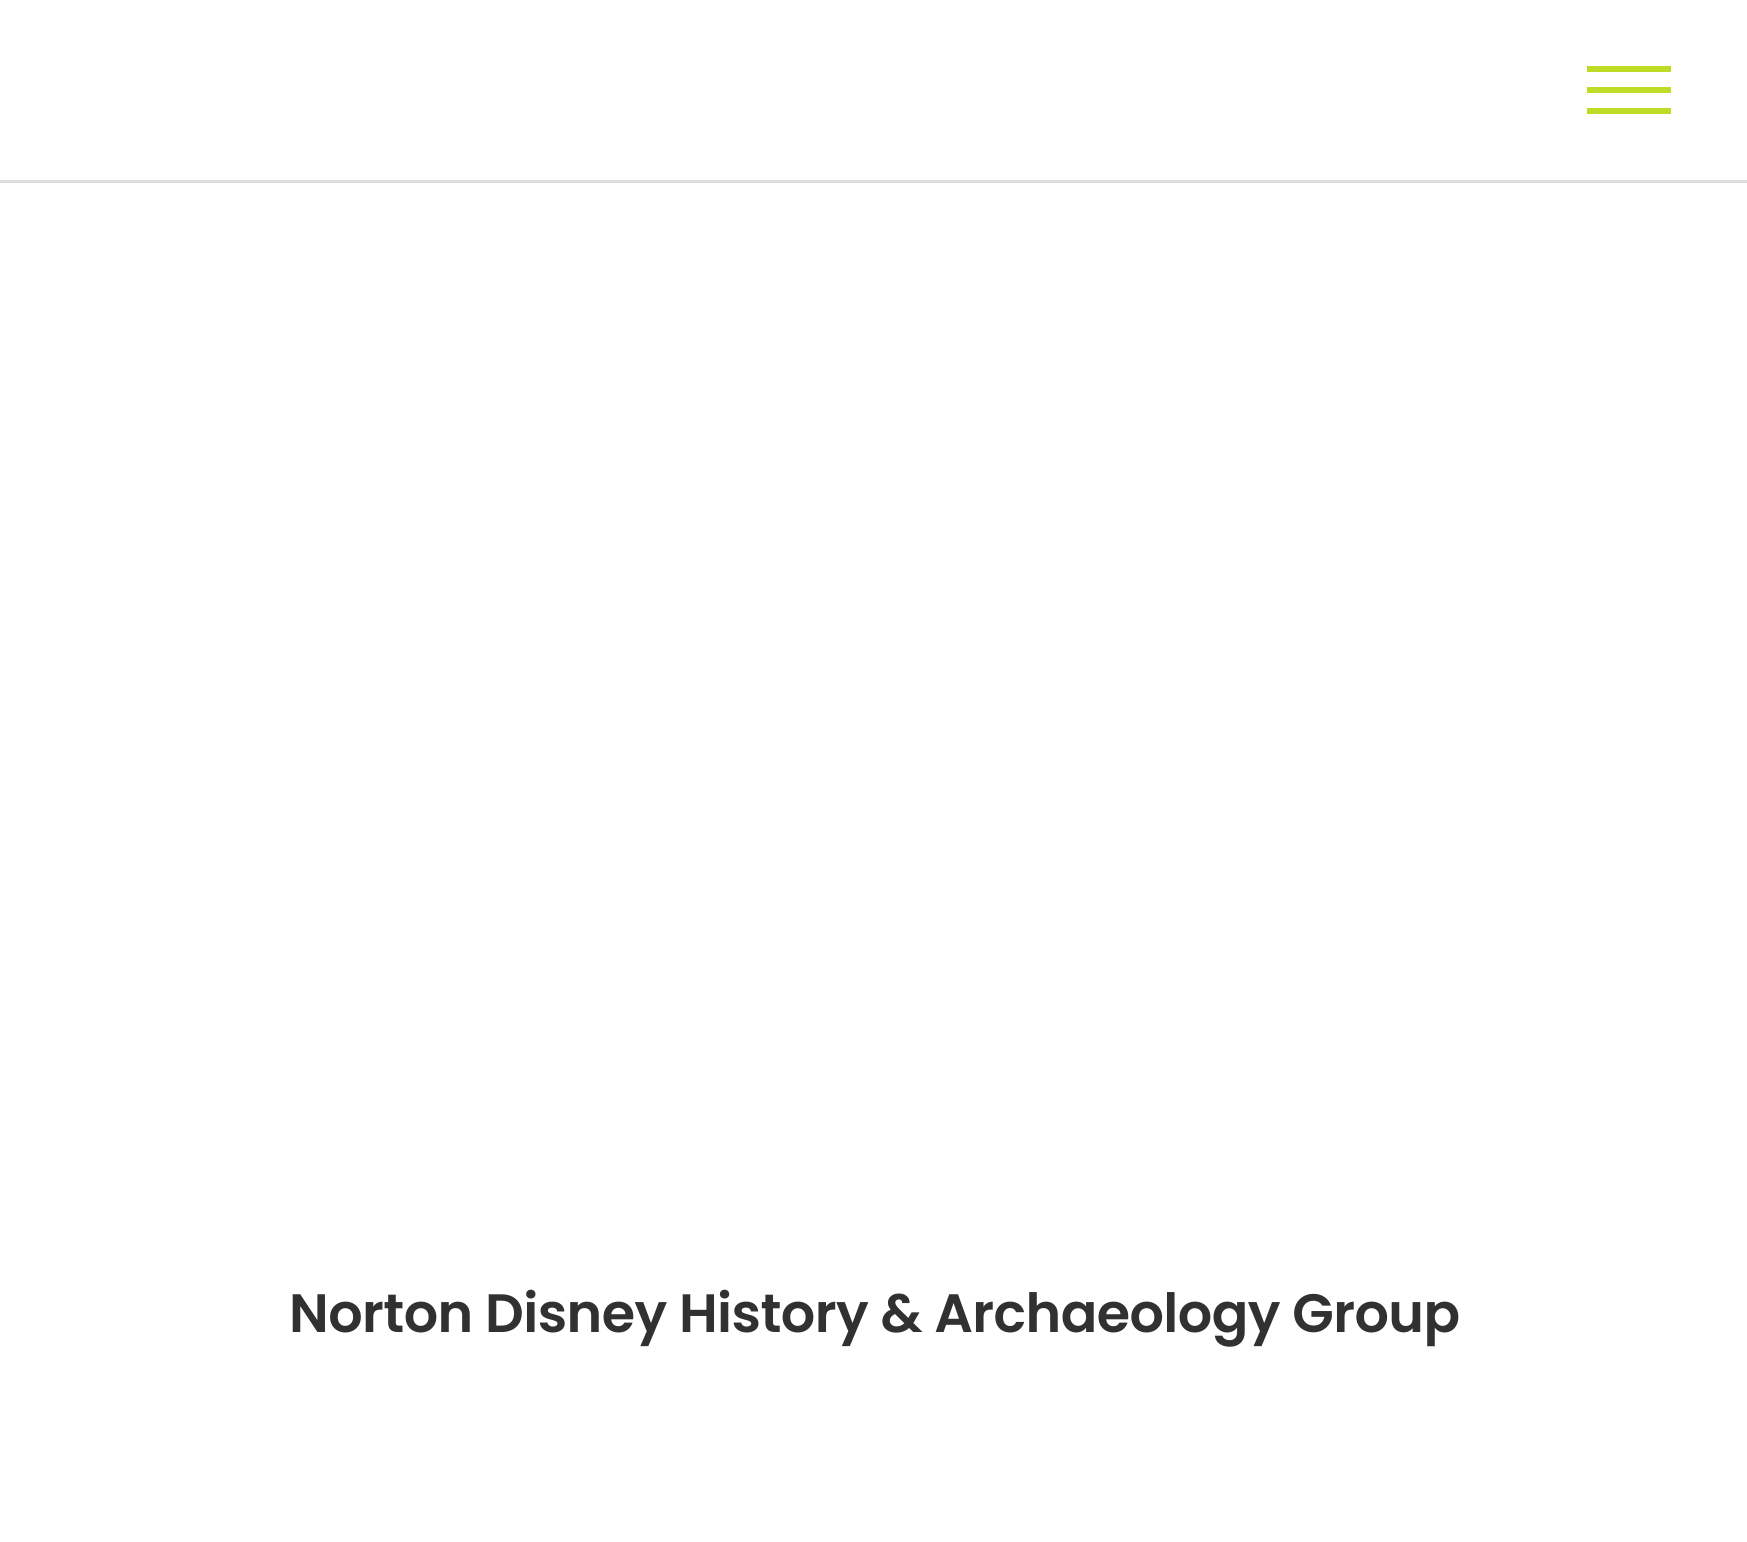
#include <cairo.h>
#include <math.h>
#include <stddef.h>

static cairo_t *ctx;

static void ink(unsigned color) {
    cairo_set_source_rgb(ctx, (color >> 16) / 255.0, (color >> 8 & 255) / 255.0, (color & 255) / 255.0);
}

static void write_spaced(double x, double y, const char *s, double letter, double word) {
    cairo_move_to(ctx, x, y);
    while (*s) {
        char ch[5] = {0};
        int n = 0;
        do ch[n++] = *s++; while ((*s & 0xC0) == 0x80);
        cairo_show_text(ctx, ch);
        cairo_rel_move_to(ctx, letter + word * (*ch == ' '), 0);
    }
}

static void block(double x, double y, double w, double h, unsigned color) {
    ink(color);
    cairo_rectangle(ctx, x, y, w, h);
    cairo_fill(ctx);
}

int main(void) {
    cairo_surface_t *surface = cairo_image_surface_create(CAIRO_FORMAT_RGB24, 1747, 1542);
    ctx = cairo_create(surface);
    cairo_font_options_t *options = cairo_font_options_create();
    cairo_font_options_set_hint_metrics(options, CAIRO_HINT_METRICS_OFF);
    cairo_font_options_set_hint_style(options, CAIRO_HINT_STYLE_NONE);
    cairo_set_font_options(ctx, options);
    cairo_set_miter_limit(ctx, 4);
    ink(0xffffff);
    cairo_paint(ctx);
    block(0, 180, 1747, 3, 0xdddddd);
    block(1587, 87, 84, 6, 0xc0db26);
    block(1587, 66, 84, 6, 0xc0db26);
    block(1587, 108, 84, 6, 0xc0db26);
    cairo_select_font_face(ctx, "Poppins SemiBold", CAIRO_FONT_SLANT_NORMAL, CAIRO_FONT_WEIGHT_NORMAL);
    cairo_set_font_size(ctx, 54);
    ink(0x313131);
    write_spaced(289, 1332, "Norton Disney History & Archaeology Group", -0.55, 0);
    cairo_surface_write_to_png(surface, "screenshot.png");
    cairo_font_options_destroy(options);
    cairo_destroy(ctx);
    cairo_surface_destroy(surface);
    return 0;
}
